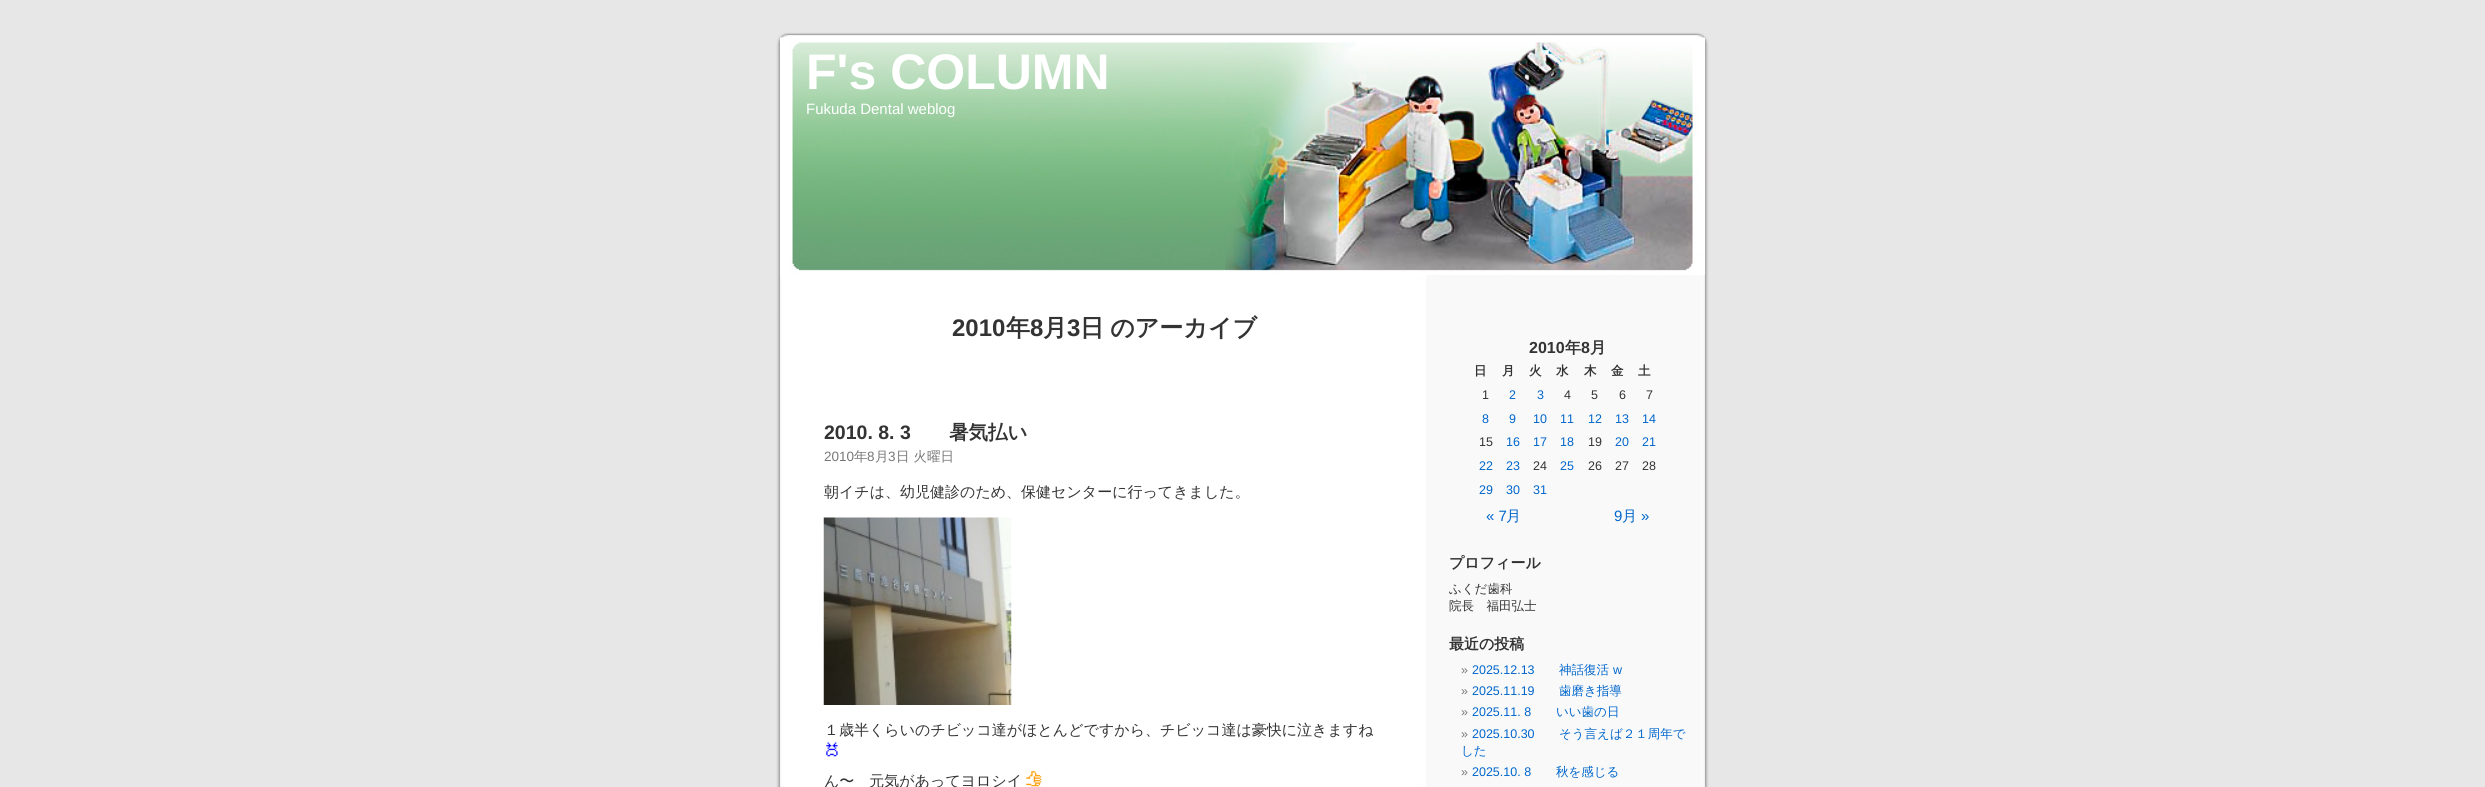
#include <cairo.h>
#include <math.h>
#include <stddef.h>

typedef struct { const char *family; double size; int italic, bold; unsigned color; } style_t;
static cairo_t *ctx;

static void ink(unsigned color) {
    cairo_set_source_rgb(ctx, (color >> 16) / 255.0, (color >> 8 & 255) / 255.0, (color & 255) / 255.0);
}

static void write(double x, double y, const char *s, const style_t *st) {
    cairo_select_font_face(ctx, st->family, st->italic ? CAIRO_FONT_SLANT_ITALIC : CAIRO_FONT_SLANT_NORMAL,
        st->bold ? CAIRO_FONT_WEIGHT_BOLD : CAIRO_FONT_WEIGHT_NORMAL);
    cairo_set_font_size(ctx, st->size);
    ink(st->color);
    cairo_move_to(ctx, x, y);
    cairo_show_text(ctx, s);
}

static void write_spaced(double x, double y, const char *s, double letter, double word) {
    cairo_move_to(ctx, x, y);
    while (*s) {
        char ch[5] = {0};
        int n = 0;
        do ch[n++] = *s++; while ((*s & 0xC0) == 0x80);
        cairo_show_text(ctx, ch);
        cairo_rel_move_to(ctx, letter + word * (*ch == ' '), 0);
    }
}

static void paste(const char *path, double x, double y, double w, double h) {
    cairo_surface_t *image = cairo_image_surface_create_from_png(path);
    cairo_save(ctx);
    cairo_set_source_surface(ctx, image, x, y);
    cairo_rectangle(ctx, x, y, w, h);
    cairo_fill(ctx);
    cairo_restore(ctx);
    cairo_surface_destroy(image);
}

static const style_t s1 = {"Liberation Sans", 50, 0, 1, 0xffffff};
static const style_t s2 = {"Liberation Sans", 15, 0, 0, 0xffffff};
static const style_t s3 = {"Liberation Sans", 24, 0, 1, 0x333333};
static const style_t s4 = {"WenQuanYi Zen Hei", 24, 0, 1, 0x333333};
static const style_t s5 = {"Liberation Sans", 19.5, 0, 1, 0x333333};
static const style_t s6 = {"WenQuanYi Zen Hei", 19.5, 0, 1, 0x333333};
static const style_t s7 = {"Liberation Sans", 13.5, 0, 0, 0x777777};
static const style_t s8 = {"WenQuanYi Zen Hei Medium", 13.5, 0, 0, 0x777777};
static const style_t s9 = {"WenQuanYi Zen Hei Medium", 15, 0, 0, 0x333333};
static const style_t s10 = {"Liberation Sans", 16, 0, 1, 0x333333};
static const style_t s11 = {"WenQuanYi Zen Hei", 16, 0, 1, 0x333333};
static const style_t s12 = {"WenQuanYi Zen Hei", 12.5, 0, 1, 0x333333};
static const style_t s13 = {"Liberation Sans", 12.5, 0, 0, 0x333333};
static const style_t s14 = {"Liberation Sans", 12.5, 0, 0, 0x0066cc};
static const style_t s15 = {"Liberation Sans", 15, 0, 0, 0x0066cc};
static const style_t s16 = {"WenQuanYi Zen Hei Medium", 15, 0, 0, 0x0066cc};
static const style_t s17 = {"WenQuanYi Zen Hei", 15, 0, 1, 0x333333};
static const style_t s18 = {"WenQuanYi Zen Hei Medium", 12.5, 0, 0, 0x333333};
static const style_t s19 = {"Liberation Sans", 12.5, 0, 0, 0x777777};
static const style_t s20 = {"WenQuanYi Zen Hei Medium", 12.5, 0, 0, 0x0066cc};

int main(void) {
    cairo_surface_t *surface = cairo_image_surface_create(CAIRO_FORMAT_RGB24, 2485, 787);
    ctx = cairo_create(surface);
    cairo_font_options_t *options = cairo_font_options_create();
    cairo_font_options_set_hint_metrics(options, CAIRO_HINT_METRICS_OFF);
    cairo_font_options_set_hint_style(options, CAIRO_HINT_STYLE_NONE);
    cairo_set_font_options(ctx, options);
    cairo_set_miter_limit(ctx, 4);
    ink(0xe7e7e7);
    cairo_paint(ctx);
    paste("pic1.png", 776, 275, 933, 512);
    paste("pic2.png", 776, 25, 933, 250);
    paste("pic3.png", 780, 37, 925, 238);
    write(806, 89, "F's COLUMN", &s1);
    write(806, 114, "Fukuda Dental weblog", &s2);
    write(952, 336, "2010", &s3);
    write(1006, 336, "年", &s4);
    write(1030, 336, "8", &s3);
    write(1043, 336, "月", &s4);
    write(1067, 336, "3", &s3);
    cairo_select_font_face(ctx, "WenQuanYi Zen Hei", CAIRO_FONT_SLANT_NORMAL, CAIRO_FONT_WEIGHT_BOLD);
    write_spaced(1080, 336, "日 のアーカイブ", 0, -1);
    write(824, 439, "2010. 8. 3", &s5);
    write(949, 439, "暑気払い", &s6);
    write(824, 461, "2010", &s7);
    write(854, 461, "年", &s8);
    write(867, 461, "8", &s7);
    write(875, 461, "月", &s8);
    write(888, 461, "3", &s7);
    write(896, 461, "日 火曜日", &s8);
    write(824, 497, "朝イチは、幼児健診のため、保健センターに行ってきました。", &s9);
    paste("pic4.png", 823, 517, 189, 188);
    write(824, 735, "１歳半くらいのチビッコ達がほとんどですから、チビッコ達は豪快に泣きますね", &s9);
    paste("pic5.png", 826, 742, 12, 15);
    write(824, 786, "ん〜　元気があってヨロシイ", &s9);
    paste("pic6.png", 1026, 771, 16, 16);
    write(1529, 353, "2010", &s10);
    write(1565, 353, "年", &s11);
    write(1581, 353, "8", &s10);
    write(1590, 353, "月", &s11);
    write(1474, 375, "日", &s12);
    write(1502, 375, "月", &s12);
    write(1529, 375, "火", &s12);
    write(1556, 375, "水", &s12);
    write(1584, 375, "木", &s12);
    write(1611, 375, "金", &s12);
    write(1638, 375, "土", &s12);
    write(1482, 399, "1", &s13);
    write(1509, 399, "2", &s14);
    write(1537, 399, "3", &s14);
    write(1564, 399, "4", &s13);
    write(1591, 399, "5", &s13);
    write(1619, 399, "6", &s13);
    write(1646, 399, "7", &s13);
    write(1482, 423, "8", &s14);
    write(1509, 423, "9", &s14);
    write(1533, 423, "10", &s14);
    write(1560, 423, "11", &s14);
    write(1588, 423, "12", &s14);
    write(1615, 423, "13", &s14);
    write(1642, 423, "14", &s14);
    write(1479, 446, "15", &s13);
    write(1506, 446, "16", &s14);
    write(1533, 446, "17", &s14);
    write(1560, 446, "18", &s14);
    write(1588, 446, "19", &s13);
    write(1615, 446, "20", &s14);
    write(1642, 446, "21", &s14);
    write(1479, 470, "22", &s14);
    write(1506, 470, "23", &s14);
    write(1533, 470, "24", &s13);
    write(1560, 470, "25", &s14);
    write(1588, 470, "26", &s13);
    write(1615, 470, "27", &s13);
    write(1642, 470, "28", &s13);
    write(1479, 494, "29", &s14);
    write(1506, 494, "30", &s14);
    write(1533, 494, "31", &s14);
    write(1486, 521, "« 7", &s15);
    write(1506, 521, "月", &s16);
    write(1614, 521, "9", &s15);
    write(1622, 521, "月", &s16);
    write(1641, 521, "»", &s15);
    write(1449, 568, "プロフィール", &s17);
    write(1449, 593, "ふくだ歯科", &s18);
    write(1449, 610, "院長　福田弘士", &s18);
    write(1449, 649, "最近の投稿", &s17);
    write(1461, 674, "»", &s19);
    write(1472, 674, "2025.12.13", &s14);
    write(1559, 674, "神話復活", &s20);
    write(1613, 674, "w", &s14);
    write(1461, 695, "»", &s19);
    write(1472, 695, "2025.11.19", &s14);
    write(1559, 695, "歯磨き指導", &s20);
    write(1461, 716, "»", &s19);
    write(1472, 716, "2025.11. 8", &s14);
    write(1556, 716, "いい歯の日", &s20);
    write(1461, 738, "»", &s19);
    write(1472, 738, "2025.10.30", &s14);
    write(1559, 738, "そう言えば２１周年で", &s20);
    write(1461, 755, "した", &s20);
    write(1461, 776, "»", &s19);
    write(1472, 776, "2025.10. 8", &s14);
    write(1556, 776, "秋を感じる", &s20);
    cairo_surface_write_to_png(surface, "screenshot.png");
    cairo_font_options_destroy(options);
    cairo_destroy(ctx);
    cairo_surface_destroy(surface);
    return 0;
}
